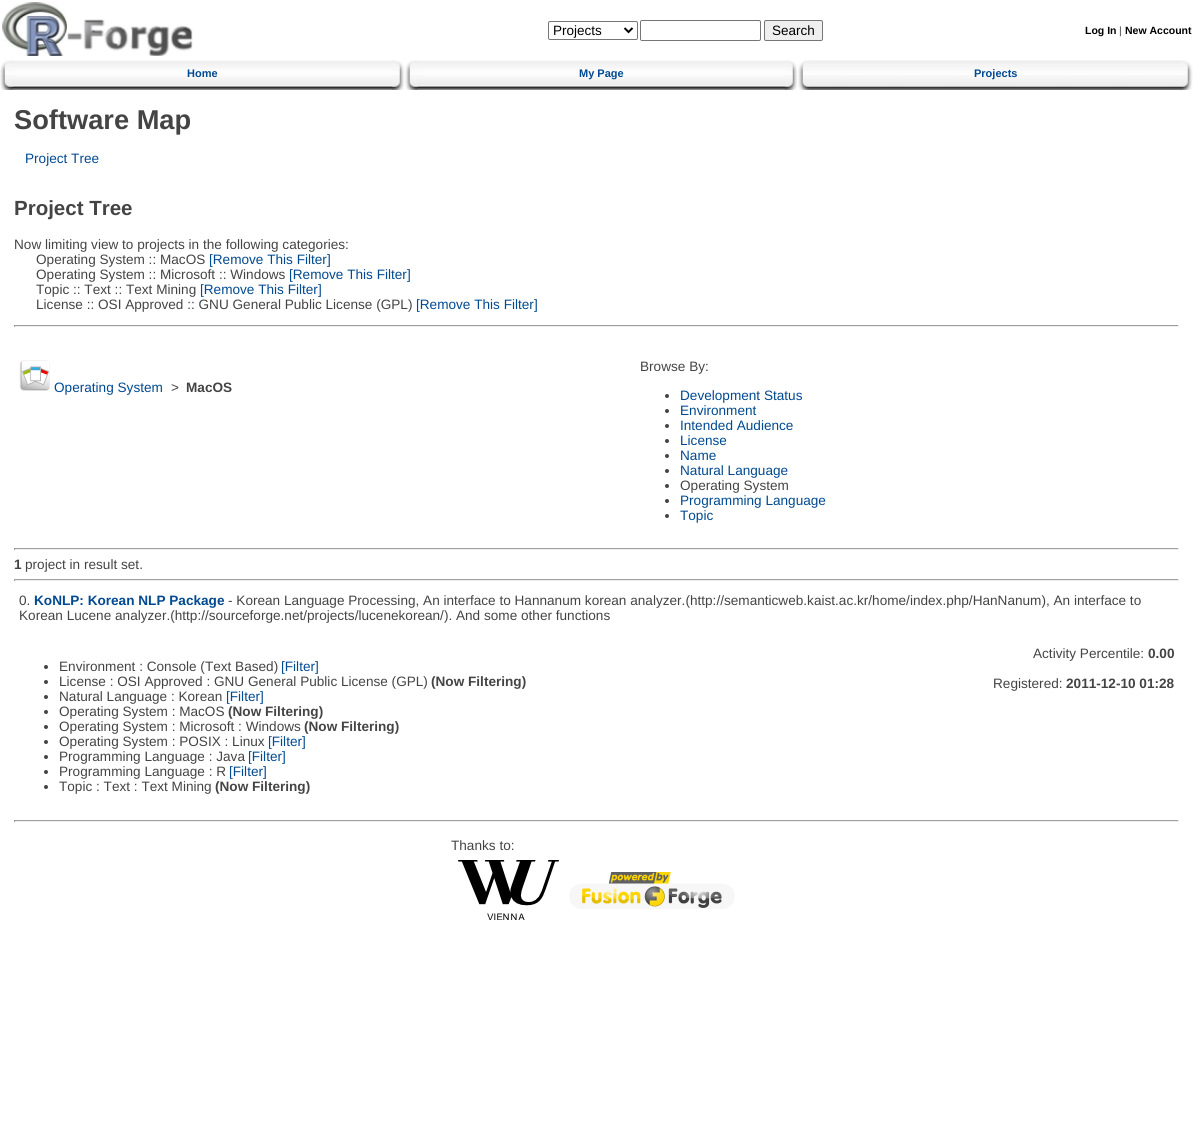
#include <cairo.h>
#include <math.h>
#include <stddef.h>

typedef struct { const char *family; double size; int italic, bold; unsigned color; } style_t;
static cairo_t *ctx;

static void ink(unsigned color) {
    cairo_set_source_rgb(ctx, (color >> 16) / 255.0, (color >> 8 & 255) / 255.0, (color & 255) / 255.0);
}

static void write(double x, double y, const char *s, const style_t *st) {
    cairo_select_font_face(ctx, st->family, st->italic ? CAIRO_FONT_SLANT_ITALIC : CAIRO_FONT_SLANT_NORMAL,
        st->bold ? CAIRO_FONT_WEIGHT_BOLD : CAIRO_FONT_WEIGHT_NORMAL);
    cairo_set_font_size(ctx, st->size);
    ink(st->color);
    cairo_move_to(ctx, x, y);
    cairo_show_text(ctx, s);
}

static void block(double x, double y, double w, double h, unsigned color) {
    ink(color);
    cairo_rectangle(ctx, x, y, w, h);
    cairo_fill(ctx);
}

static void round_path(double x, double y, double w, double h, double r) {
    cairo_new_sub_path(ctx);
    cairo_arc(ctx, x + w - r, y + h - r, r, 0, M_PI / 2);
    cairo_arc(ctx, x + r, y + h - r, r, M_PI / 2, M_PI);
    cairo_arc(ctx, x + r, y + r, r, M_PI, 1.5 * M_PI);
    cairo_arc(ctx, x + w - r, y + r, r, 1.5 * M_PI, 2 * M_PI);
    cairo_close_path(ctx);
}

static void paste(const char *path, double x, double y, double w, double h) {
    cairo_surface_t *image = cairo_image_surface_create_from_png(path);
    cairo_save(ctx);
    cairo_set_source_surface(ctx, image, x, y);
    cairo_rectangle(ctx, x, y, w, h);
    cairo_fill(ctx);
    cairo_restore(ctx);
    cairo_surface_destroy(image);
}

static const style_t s1 = {"Liberation Sans", 13.5, 0, 0, 0x000000};
static const style_t s2 = {"Liberation Sans", 10.5, 0, 1, 0x000000};
static const style_t s3 = {"Liberation Sans", 10.5, 0, 0, 0x444444};
static const style_t s4 = {"Liberation Sans", 11, 0, 1, 0x014990};
static const style_t s5 = {"Liberation Sans", 27.25, 0, 1, 0x444444};
static const style_t s6 = {"Liberation Sans", 13.6, 0, 0, 0x014990};
static const style_t s7 = {"Liberation Sans", 20.5, 0, 1, 0x444444};
static const style_t s8 = {"Liberation Sans", 13.6, 0, 0, 0x444444};
static const style_t s9 = {"Liberation Sans", 13.6, 0, 1, 0x444444};
static const style_t s10 = {"Liberation Sans", 13.6, 0, 1, 0x014990};

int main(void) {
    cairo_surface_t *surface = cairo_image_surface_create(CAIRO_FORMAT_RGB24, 1193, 1144);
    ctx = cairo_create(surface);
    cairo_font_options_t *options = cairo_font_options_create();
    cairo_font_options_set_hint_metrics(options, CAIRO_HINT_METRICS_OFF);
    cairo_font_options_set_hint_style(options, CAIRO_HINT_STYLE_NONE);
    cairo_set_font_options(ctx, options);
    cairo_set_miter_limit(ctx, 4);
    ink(0xffffff);
    cairo_paint(ctx);
    paste("pic1.png", 2, 2, 191, 54);
    round_path(548.5, 21.5, 89, 18, 1.5);
    ink(0x767676);
    cairo_set_line_width(ctx, 1);
    cairo_stroke(ctx);
    cairo_new_path(ctx);
    cairo_move_to(ctx, 624.5, 28);
    cairo_line_to(ctx, 628.5, 32);
    cairo_line_to(ctx, 632.5, 28);
    ink(0x000000);
    cairo_set_line_width(ctx, 2);
    cairo_stroke(ctx);
    write(553, 35, "Projects", &s1);
    round_path(640.5, 20.5, 120, 20, 1.5);
    ink(0x767676);
    cairo_set_line_width(ctx, 1);
    cairo_stroke(ctx);
    ink(0xefefef);
    round_path(764.5, 20.5, 58, 20, 1.5);
    cairo_fill_preserve(ctx);
    ink(0x767676);
    cairo_stroke(ctx);
    write(772, 35, "Search", &s1);
    write(1085, 34, "Log In", &s2);
    write(1119, 34, "|", &s3);
    write(1125, 34, "New Account", &s2);
    paste("pic2.png", 0, 60, 13, 30);
    paste("pic3.png", 13, 60, 379, 30);
    write(187, 77, "Home", &s4);
    paste("pic4.png", 392, 60, 13, 30);
    paste("pic2.png", 405, 60, 13, 30);
    paste("pic5.png", 418, 60, 367, 30);
    write(579, 77, "My Page", &s4);
    paste("pic4.png", 785, 60, 13, 30);
    paste("pic2.png", 798, 60, 13, 30);
    paste("pic6.png", 811, 60, 369, 30);
    write(974, 77, "Projects", &s4);
    paste("pic4.png", 1180, 60, 13, 30);
    write(14, 129, "Software Map", &s5);
    write(25, 163, "Project Tree", &s6);
    write(14, 215, "Project Tree", &s7);
    write(14, 249, "Now limiting view to projects in the following categories:", &s8);
    write(36, 264, "Operating System :: MacOS", &s8);
    write(209, 264, "[Remove This Filter]", &s6);
    write(36, 279, "Operating System :: Microsoft :: Windows", &s8);
    write(289, 279, "[Remove This Filter]", &s6);
    write(36, 294, "Topic :: Text :: Text Mining", &s8);
    write(200, 294, "[Remove This Filter]", &s6);
    write(36, 309, "License :: OSI Approved :: GNU General Public License (GPL)", &s8);
    write(416, 309, "[Remove This Filter]", &s6);
    block(14, 325, 1165, 1, 0x9f9f9f);
    block(1178, 325, 1, 2, 0xeeeeee);
    block(14, 326, 1165, 1, 0xeeeeee);
    block(14, 325, 1, 2, 0x9f9f9f);
    paste("pic7.png", 19, 360, 31, 31);
    write(54, 392, "Operating System", &s6);
    write(171, 392, ">", &s8);
    write(186, 392, "MacOS", &s9);
    write(640, 371, "Browse By:", &s8);
    cairo_new_path(ctx);
    cairo_arc(ctx, 667, 396, 2, 0, 2 * M_PI);
    cairo_fill(ctx);
    write(680, 400, "Development Status", &s6);
    ink(0x444444);
    cairo_new_path(ctx);
    cairo_arc(ctx, 667, 411, 2, 0, 2 * M_PI);
    cairo_fill(ctx);
    write(680, 415, "Environment", &s6);
    ink(0x444444);
    cairo_new_path(ctx);
    cairo_arc(ctx, 667, 426, 2, 0, 2 * M_PI);
    cairo_fill(ctx);
    write(680, 430, "Intended Audience", &s6);
    ink(0x444444);
    cairo_new_path(ctx);
    cairo_arc(ctx, 667, 441, 2, 0, 2 * M_PI);
    cairo_fill(ctx);
    write(680, 445, "License", &s6);
    ink(0x444444);
    cairo_new_path(ctx);
    cairo_arc(ctx, 667, 456, 2, 0, 2 * M_PI);
    cairo_fill(ctx);
    write(680, 460, "Name", &s6);
    ink(0x444444);
    cairo_new_path(ctx);
    cairo_arc(ctx, 667, 471, 2, 0, 2 * M_PI);
    cairo_fill(ctx);
    write(680, 475, "Natural Language", &s6);
    ink(0x444444);
    cairo_new_path(ctx);
    cairo_arc(ctx, 667, 486, 2, 0, 2 * M_PI);
    cairo_fill(ctx);
    write(680, 490, "Operating System", &s8);
    cairo_new_path(ctx);
    cairo_arc(ctx, 667, 501, 2, 0, 2 * M_PI);
    cairo_fill(ctx);
    write(680, 505, "Programming Language", &s6);
    ink(0x444444);
    cairo_new_path(ctx);
    cairo_arc(ctx, 667, 516, 2, 0, 2 * M_PI);
    cairo_fill(ctx);
    write(680, 520, "Topic", &s6);
    block(14, 548, 1165, 1, 0x9f9f9f);
    block(1178, 548, 1, 2, 0xeeeeee);
    block(14, 549, 1165, 1, 0xeeeeee);
    block(14, 548, 1, 2, 0x9f9f9f);
    write(14, 569, "1", &s9);
    write(25, 569, "project in result set.", &s8);
    block(14, 579, 1165, 1, 0x9f9f9f);
    block(1178, 579, 1, 2, 0xeeeeee);
    block(14, 580, 1165, 1, 0xeeeeee);
    block(14, 579, 1, 2, 0x9f9f9f);
    write(19, 605, "0.", &s8);
    write(34, 605, "KoNLP: Korean NLP Package", &s10);
    write(228, 605, "- Korean Language Processing, An interface to Hannanum korean analyzer.(http://semanticweb.kaist.ac.kr/home/index.php/HanNanum), An interface to", &s8);
    write(19, 620, "Korean Lucene analyzer.(http://sourceforge.net/projects/lucenekorean/). And some other functions", &s8);
    cairo_new_path(ctx);
    cairo_arc(ctx, 46, 667, 2, 0, 2 * M_PI);
    cairo_fill(ctx);
    write(59, 671, "Environment : Console (Text Based)", &s8);
    write(281, 671, "[Filter]", &s6);
    ink(0x444444);
    cairo_new_path(ctx);
    cairo_arc(ctx, 46, 682, 2, 0, 2 * M_PI);
    cairo_fill(ctx);
    write(59, 686, "License : OSI Approved : GNU General Public License (GPL)", &s8);
    write(431, 686, "(Now Filtering)", &s9);
    cairo_new_path(ctx);
    cairo_arc(ctx, 46, 697, 2, 0, 2 * M_PI);
    cairo_fill(ctx);
    write(59, 701, "Natural Language : Korean", &s8);
    write(226, 701, "[Filter]", &s6);
    ink(0x444444);
    cairo_new_path(ctx);
    cairo_arc(ctx, 46, 712, 2, 0, 2 * M_PI);
    cairo_fill(ctx);
    write(59, 716, "Operating System : MacOS", &s8);
    write(228, 716, "(Now Filtering)", &s9);
    cairo_new_path(ctx);
    cairo_arc(ctx, 46, 727, 2, 0, 2 * M_PI);
    cairo_fill(ctx);
    write(59, 731, "Operating System : Microsoft : Windows", &s8);
    write(304, 731, "(Now Filtering)", &s9);
    cairo_new_path(ctx);
    cairo_arc(ctx, 46, 742, 2, 0, 2 * M_PI);
    cairo_fill(ctx);
    write(59, 746, "Operating System : POSIX : Linux", &s8);
    write(268, 746, "[Filter]", &s6);
    ink(0x444444);
    cairo_new_path(ctx);
    cairo_arc(ctx, 46, 757, 2, 0, 2 * M_PI);
    cairo_fill(ctx);
    write(59, 761, "Programming Language : Java", &s8);
    write(248, 761, "[Filter]", &s6);
    ink(0x444444);
    cairo_new_path(ctx);
    cairo_arc(ctx, 46, 772, 2, 0, 2 * M_PI);
    cairo_fill(ctx);
    write(59, 776, "Programming Language : R", &s8);
    write(229, 776, "[Filter]", &s6);
    ink(0x444444);
    cairo_new_path(ctx);
    cairo_arc(ctx, 46, 787, 2, 0, 2 * M_PI);
    cairo_fill(ctx);
    write(59, 791, "Topic : Text : Text Mining", &s8);
    write(215, 791, "(Now Filtering)", &s9);
    write(1033, 658, "Activity Percentile:", &s8);
    write(1148, 658, "0.00", &s9);
    write(993, 688, "Registered:", &s8);
    write(1066, 688, "2011-12-10 01:28", &s9);
    block(14, 820, 1165, 1, 0x9f9f9f);
    block(1178, 820, 1, 2, 0xeeeeee);
    block(14, 821, 1165, 1, 0xeeeeee);
    block(14, 820, 1, 2, 0x9f9f9f);
    write(451, 850, "Thanks to:", &s8);
    paste("pic8.png", 458, 860, 101, 60);
    paste("pic9.png", 569, 872, 166, 37);
    cairo_surface_write_to_png(surface, "screenshot.png");
    cairo_font_options_destroy(options);
    cairo_destroy(ctx);
    cairo_surface_destroy(surface);
    return 0;
}
